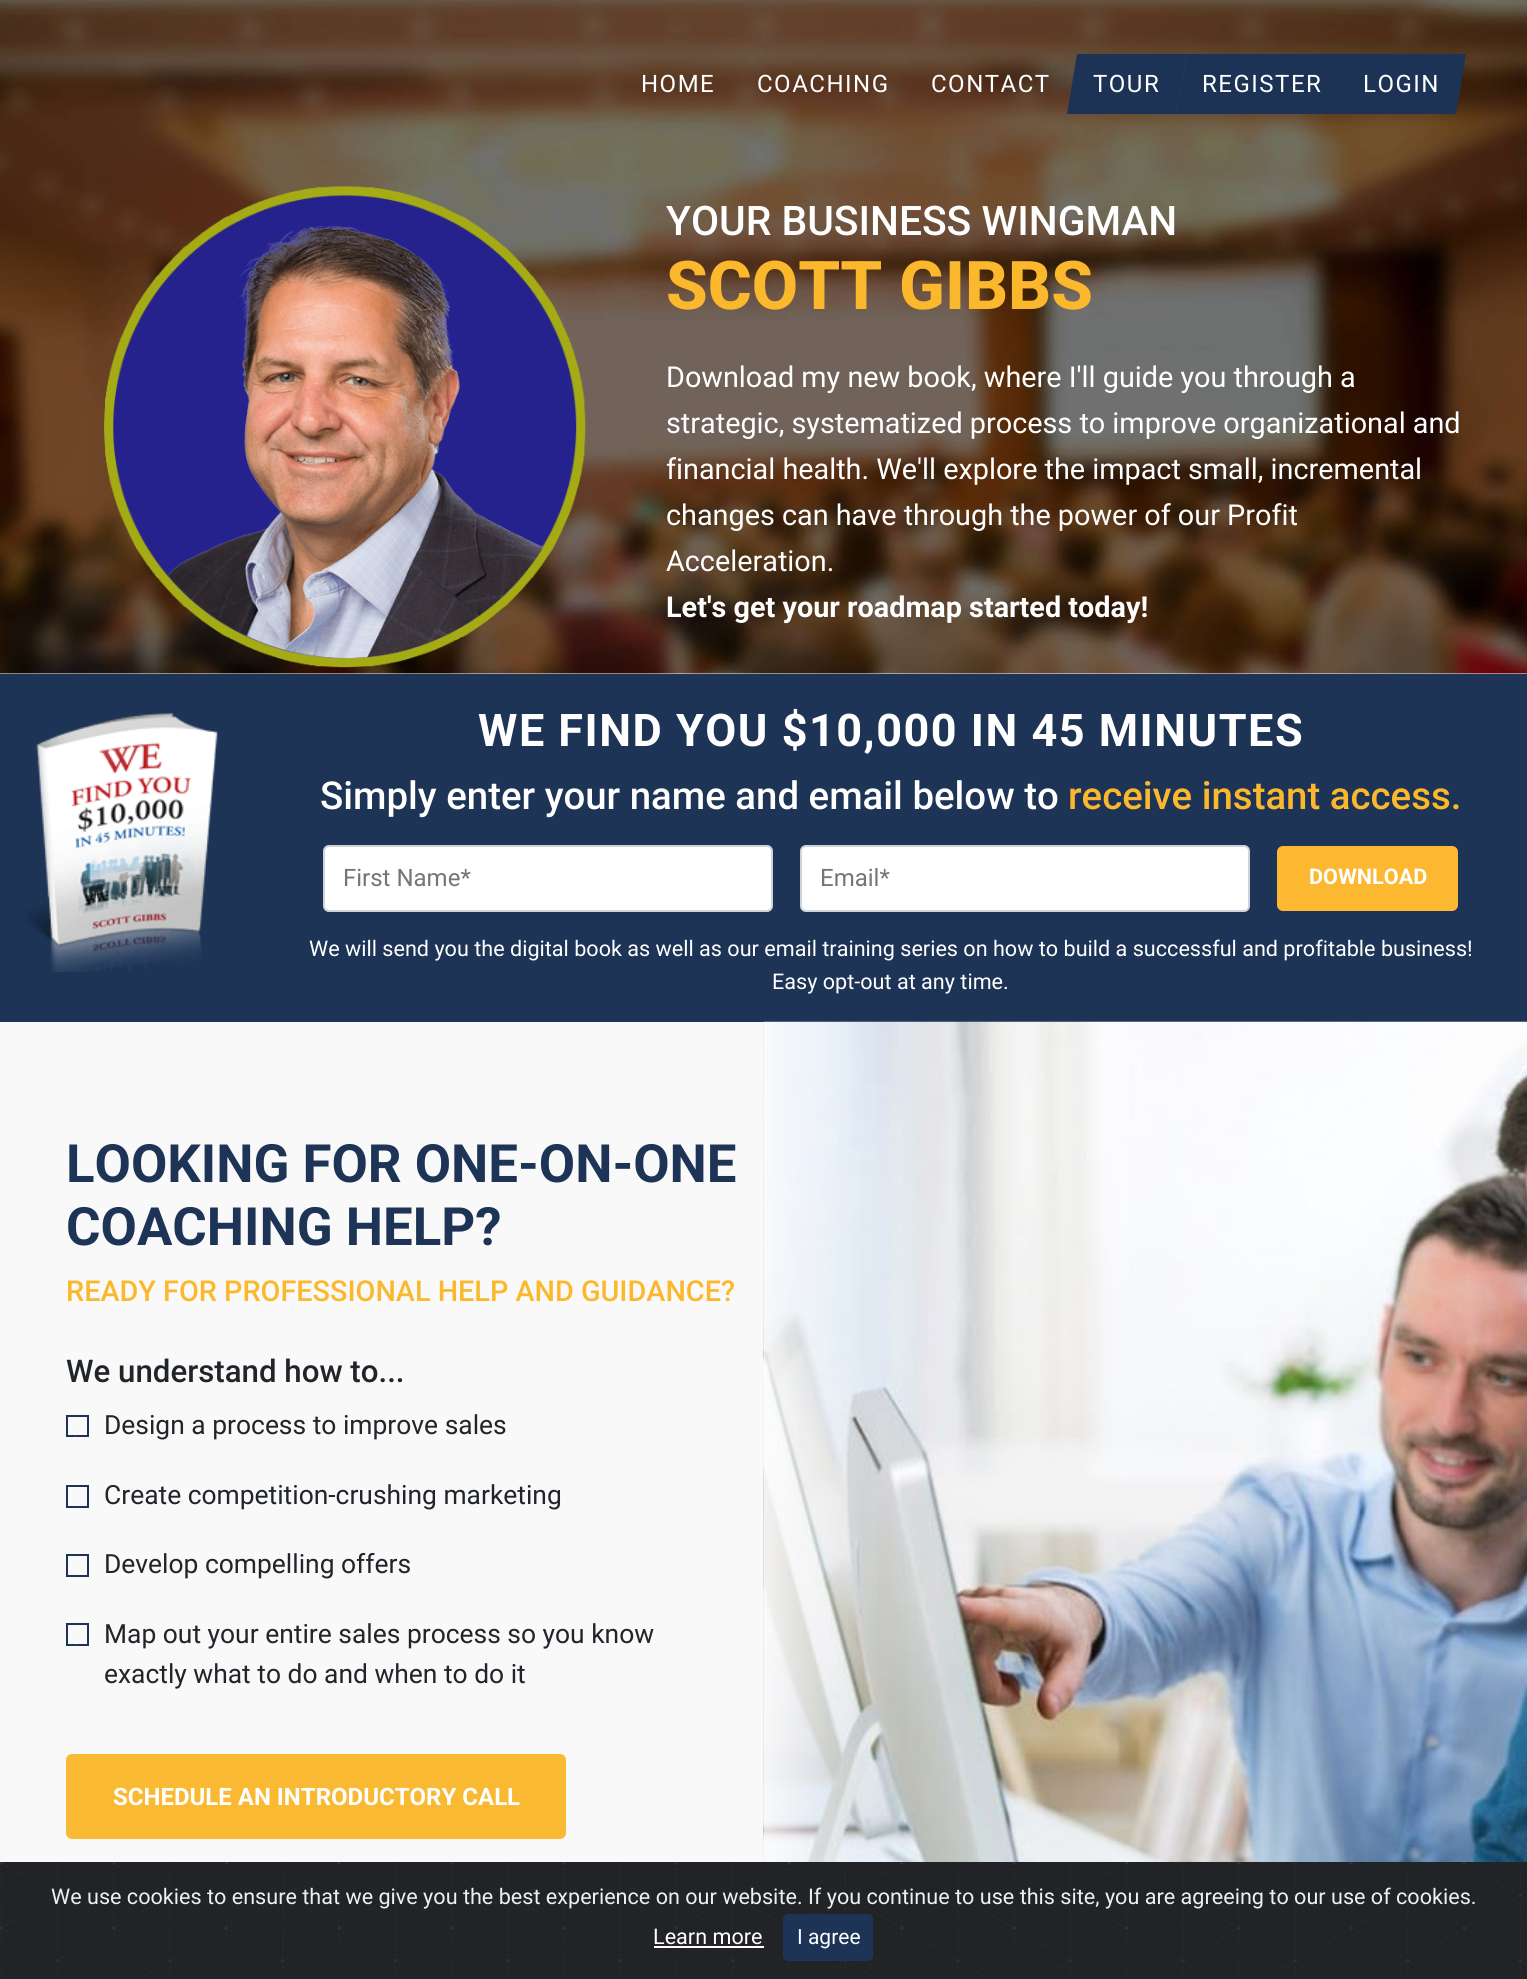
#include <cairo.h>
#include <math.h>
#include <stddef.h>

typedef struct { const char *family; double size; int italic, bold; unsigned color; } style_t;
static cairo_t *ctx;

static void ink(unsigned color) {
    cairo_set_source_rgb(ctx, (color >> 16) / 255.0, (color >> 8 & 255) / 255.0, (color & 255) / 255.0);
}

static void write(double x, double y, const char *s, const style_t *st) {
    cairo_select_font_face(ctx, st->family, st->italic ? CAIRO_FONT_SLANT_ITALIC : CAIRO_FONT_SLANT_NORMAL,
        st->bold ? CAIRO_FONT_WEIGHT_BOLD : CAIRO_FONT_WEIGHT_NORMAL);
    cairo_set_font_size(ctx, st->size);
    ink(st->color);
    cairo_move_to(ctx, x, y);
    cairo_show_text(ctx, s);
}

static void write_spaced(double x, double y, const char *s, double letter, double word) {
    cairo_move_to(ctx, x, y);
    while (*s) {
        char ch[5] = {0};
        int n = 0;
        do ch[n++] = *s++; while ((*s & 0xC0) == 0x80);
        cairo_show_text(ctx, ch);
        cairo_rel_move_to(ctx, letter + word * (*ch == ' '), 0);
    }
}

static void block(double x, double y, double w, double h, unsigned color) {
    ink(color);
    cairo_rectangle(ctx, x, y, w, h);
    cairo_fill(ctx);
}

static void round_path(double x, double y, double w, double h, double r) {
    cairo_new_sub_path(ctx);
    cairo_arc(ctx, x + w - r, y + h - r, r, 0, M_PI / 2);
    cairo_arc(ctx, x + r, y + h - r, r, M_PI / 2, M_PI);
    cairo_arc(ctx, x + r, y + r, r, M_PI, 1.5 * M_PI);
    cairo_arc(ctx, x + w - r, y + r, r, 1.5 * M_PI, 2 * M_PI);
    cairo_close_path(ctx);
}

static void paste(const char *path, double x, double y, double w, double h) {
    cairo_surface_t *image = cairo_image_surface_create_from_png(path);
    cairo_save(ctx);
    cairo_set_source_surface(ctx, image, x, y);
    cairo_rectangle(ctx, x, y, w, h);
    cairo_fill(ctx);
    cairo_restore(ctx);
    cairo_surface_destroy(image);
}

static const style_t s1 = {"Roboto Medium", 40.75, 0, 0, 0xffffff};
static const style_t s2 = {"Roboto ExtraBold", 67.25, 0, 0, 0xfbb82d};
static const style_t s3 = {"Roboto", 28.8, 0, 0, 0xffffff};
static const style_t s4 = {"Roboto", 28.8, 0, 1, 0xffffff};
static const style_t s5 = {"Roboto Medium", 38.4, 0, 0, 0xffffff};
static const style_t s6 = {"Roboto Medium", 38.4, 0, 0, 0xfbb82d};
static const style_t s7 = {"Roboto", 24, 0, 0, 0x757575};
static const style_t s8 = {"Roboto", 21.6, 0, 1, 0xffffff};
static const style_t s9 = {"Roboto", 21.6, 0, 0, 0xffffff};
static const style_t s10 = {"Roboto", 52.75, 0, 1, 0x1d3456};
static const style_t s11 = {"Roboto Medium", 28.8, 0, 0, 0xfbb82d};
static const style_t s12 = {"Roboto Medium", 31.25, 0, 0, 0x212529};
static const style_t s13 = {"Roboto", 26.4, 0, 0, 0x212529};
static const style_t s14 = {"Roboto", 24, 0, 1, 0xffffff};
static const style_t s15 = {"Roboto", 21.6, 0, 0, 0xecf0f1};
static const style_t s16 = {"Roboto", 21, 0, 0, 0xffffff};

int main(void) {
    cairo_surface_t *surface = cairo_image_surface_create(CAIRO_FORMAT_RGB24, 1527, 1979);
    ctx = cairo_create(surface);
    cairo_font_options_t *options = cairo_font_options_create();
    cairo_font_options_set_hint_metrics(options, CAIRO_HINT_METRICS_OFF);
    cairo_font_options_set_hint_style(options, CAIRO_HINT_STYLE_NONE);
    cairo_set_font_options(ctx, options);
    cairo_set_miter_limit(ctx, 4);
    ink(0xffffff);
    cairo_paint(ctx);
    paste("pic1.png", 0, 0, 1527, 674);
    cairo_select_font_face(ctx, "Roboto", CAIRO_FONT_SLANT_NORMAL, CAIRO_FONT_WEIGHT_NORMAL);
    cairo_set_font_size(ctx, 24);
    ink(0xffffff);
    write_spaced(641, 92, "HOME", 1.5, 0);
    write_spaced(757, 92, "COACHING", 1.5, 0);
    write_spaced(931, 92, "CONTACT", 1.5, 0);
    ink(0x1d3355);
    cairo_new_path(ctx);
    cairo_move_to(ctx, 1077, 54);
    cairo_line_to(ctx, 1187, 54);
    cairo_line_to(ctx, 1176, 114);
    cairo_line_to(ctx, 1067, 114);
    cairo_close_path(ctx);
    cairo_fill(ctx);
    ink(0xffffff);
    write_spaced(1093, 92, "TOUR", 1.5, 0);
    ink(0x1d3355);
    cairo_new_path(ctx);
    cairo_move_to(ctx, 1187, 54);
    cairo_line_to(ctx, 1349, 54);
    cairo_line_to(ctx, 1338, 114);
    cairo_line_to(ctx, 1176, 114);
    cairo_close_path(ctx);
    cairo_fill(ctx);
    ink(0xffffff);
    write_spaced(1202, 92, "REGISTER", 1.5, 0);
    ink(0x1d3355);
    cairo_new_path(ctx);
    cairo_move_to(ctx, 1347, 54);
    cairo_line_to(ctx, 1466, 54);
    cairo_line_to(ctx, 1456, 114);
    cairo_line_to(ctx, 1337, 114);
    cairo_close_path(ctx);
    cairo_fill(ctx);
    ink(0xffffff);
    write_spaced(1363, 92, "LOGIN", 1.5, 0);
    paste("pic2.png", 104, 186, 482, 482);
    write(666, 235, "YOUR BUSINESS WINGMAN", &s1);
    write(666, 309, "SCOTT GIBBS", &s2);
    write(666, 387, "Download my new book, where I'll guide you through a", &s3);
    write(666, 433, "strategic, systematized process to improve organizational and", &s3);
    write(666, 479, "financial health. We'll explore the impact small, incremental", &s3);
    write(666, 525, "changes can have through the power of our Profit", &s3);
    write(666, 571, "Acceleration.", &s3);
    write(666, 617, "Let's get your roadmap started today!", &s4);
    block(0, 674, 1527, 348, 0x1d3456);
    paste("pic3.png", 25, 713, 193, 259);
    cairo_set_font_size(ctx, 45);
    ink(0xffffff);
    write_spaced(478, 746, "WE FIND YOU $10,000 IN 45 MINUTES", 1.5, 0);
    write(320, 809, "Simply enter your name and email below to", &s5);
    write(1068, 809, "receive instant access.", &s6);
    ink(0xffffff);
    round_path(324, 846, 448, 65, 5);
    cairo_fill_preserve(ctx);
    ink(0xced4da);
    cairo_stroke(ctx);
    write(343, 886, "First Name*", &s7);
    ink(0xffffff);
    round_path(801, 846, 448, 65, 5);
    cairo_fill_preserve(ctx);
    ink(0xced4da);
    cairo_stroke(ctx);
    write(820, 886, "Email*", &s7);
    ink(0xfcb831);
    round_path(1277, 846, 181, 65, 6);
    cairo_fill(ctx);
    write(1309, 884, "DOWNLOAD", &s8);
    write(309, 956, "We will send you the digital book as well as our email training series on how to build a successful and profitable business!", &s9);
    write(772, 989, "Easy opt-out at any time.", &s9);
    block(0, 1022, 764, 840, 0xf9f9f9);
    write(66, 1182, "LOOKING FOR ONE-ON-ONE", &s10);
    write(66, 1245, "COACHING HELP?", &s10);
    write(66, 1301, "READY FOR PROFESSIONAL HELP AND GUIDANCE?", &s11);
    write(66, 1382, "We understand how to...", &s12);
    cairo_rectangle(ctx, 67, 1416, 21, 20);
    ink(0x1d3456);
    cairo_stroke(ctx);
    ink(0xf9f9f9);
    cairo_new_path(ctx);
    cairo_move_to(ctx, 75, 1435.5);
    cairo_line_to(ctx, 69.5, 1430);
    cairo_line_to(ctx, 74, 1426);
    cairo_line_to(ctx, 79, 1431.5);
    cairo_close_path(ctx);
    cairo_fill(ctx);
    write(104, 1434, "Design a process to improve sales", &s13);
    cairo_rectangle(ctx, 67, 1486, 21, 21);
    ink(0x1d3456);
    cairo_stroke(ctx);
    write(104, 1504, "Create competition-crushing marketing", &s13);
    cairo_rectangle(ctx, 67, 1555, 21, 21);
    ink(0x1d3456);
    cairo_stroke(ctx);
    write(104, 1573, "Develop compelling offers", &s13);
    cairo_rectangle(ctx, 67, 1624, 21, 21);
    ink(0x1d3456);
    cairo_stroke(ctx);
    ink(0xf9f9f9);
    cairo_new_path(ctx);
    cairo_move_to(ctx, 75, 1644.5);
    cairo_line_to(ctx, 69.5, 1639);
    cairo_line_to(ctx, 74, 1634.5);
    cairo_line_to(ctx, 79, 1640);
    cairo_close_path(ctx);
    cairo_fill(ctx);
    write(104, 1643, "Map out your entire sales process so you know", &s13);
    write(104, 1683, "exactly what to do and when to do it", &s13);
    ink(0xf9b933);
    round_path(66, 1754, 500, 85, 6);
    cairo_fill(ctx);
    write(113, 1805, "SCHEDULE AN INTRODUCTORY CALL", &s14);
    paste("pic4.png", 763, 1021, 764, 841);
    block(0, 1862, 1527, 117, 0x212327);
    paste("pic5.png", 0, 1862, 1526, 115);
    write(51, 1904, "We use cookies to ensure that we give you the best experience on our website. If you continue to use this site, you are agreeing to our use of cookies.", &s15);
    write(653, 1944, "Learn more", &s9);
    block(654, 1946, 110, 2, 0xffffff);
    ink(0x1d3456);
    round_path(784, 1915, 88, 45, 4);
    cairo_fill_preserve(ctx);
    cairo_stroke(ctx);
    write(797, 1944, "I agree", &s16);
    cairo_surface_write_to_png(surface, "screenshot.png");
    cairo_font_options_destroy(options);
    cairo_destroy(ctx);
    cairo_surface_destroy(surface);
    return 0;
}
